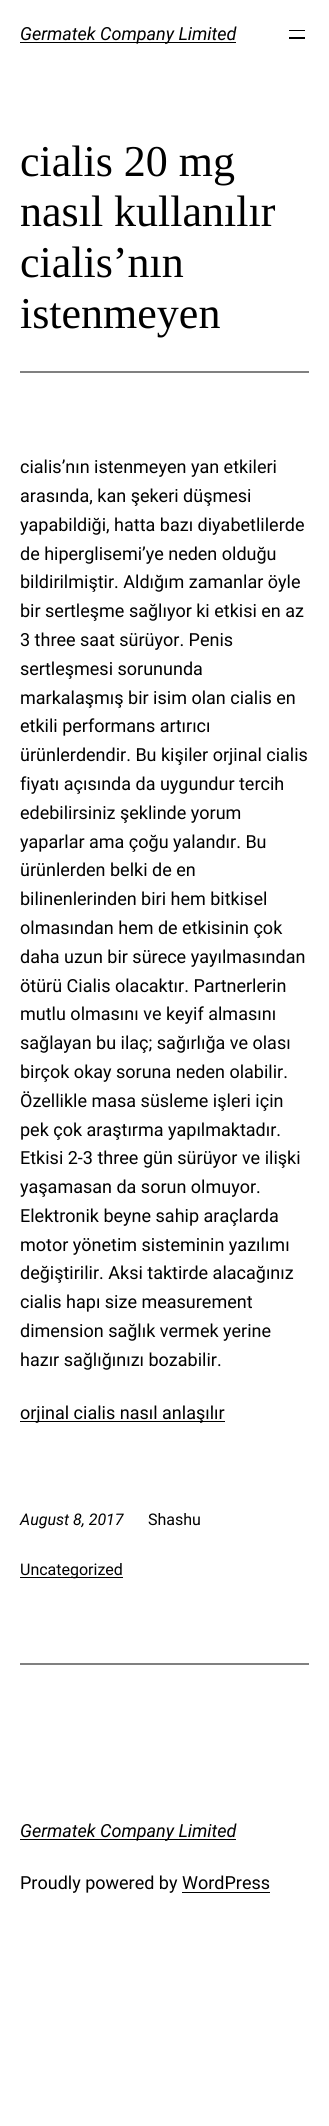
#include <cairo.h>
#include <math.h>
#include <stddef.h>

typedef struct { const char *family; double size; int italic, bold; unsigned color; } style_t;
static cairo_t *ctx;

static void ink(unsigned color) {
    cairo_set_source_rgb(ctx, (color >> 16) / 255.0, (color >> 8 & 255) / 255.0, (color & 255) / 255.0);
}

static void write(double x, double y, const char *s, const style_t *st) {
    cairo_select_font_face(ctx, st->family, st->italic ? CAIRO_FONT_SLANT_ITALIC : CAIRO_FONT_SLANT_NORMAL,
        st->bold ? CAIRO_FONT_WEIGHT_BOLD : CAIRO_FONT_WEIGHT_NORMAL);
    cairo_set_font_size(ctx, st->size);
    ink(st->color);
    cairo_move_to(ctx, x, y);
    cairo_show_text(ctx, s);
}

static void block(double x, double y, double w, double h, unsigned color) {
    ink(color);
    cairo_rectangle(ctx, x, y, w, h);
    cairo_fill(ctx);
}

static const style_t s1 = {"Roboto", 18, 1, 0, 0x000000};
static const style_t s2 = {"Liberation Serif", 44, 0, 0, 0x000000};
static const style_t s3 = {"Roboto", 18, 0, 0, 0x000000};
static const style_t s4 = {"Roboto", 16, 1, 0, 0x000000};
static const style_t s5 = {"Roboto", 16, 0, 0, 0x000000};

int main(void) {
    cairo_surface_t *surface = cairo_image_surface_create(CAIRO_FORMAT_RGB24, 329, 2126);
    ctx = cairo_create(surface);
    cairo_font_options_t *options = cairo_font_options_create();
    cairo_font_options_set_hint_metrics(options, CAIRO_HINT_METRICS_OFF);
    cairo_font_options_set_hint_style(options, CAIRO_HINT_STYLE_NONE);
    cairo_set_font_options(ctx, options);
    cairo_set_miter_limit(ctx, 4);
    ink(0xffffff);
    cairo_paint(ctx);
    block(20, 42, 216, 1, 0x000000);
    write(20, 40, "Germatek Company Limited", &s1);
    block(289, 30, 16, 1, 0x000000);
    block(289, 37, 16, 2, 0x000000);
    write(20, 176, "cialis 20 mg", &s2);
    write(20, 226, "nasıl kullanılır", &s2);
    write(20, 277, "cialis’nın", &s2);
    write(20, 328, "istenmeyen", &s2);
    block(20, 371, 289, 2, 0x808080);
    write(20, 473, "cialis’nın istenmeyen yan etkileri", &s3);
    write(20, 502, "arasında, kan şekeri düşmesi", &s3);
    write(20, 531, "yapabildiği, hatta bazı diyabetlilerde", &s3);
    write(20, 560, "de hiperglisemi’ye neden olduğu", &s3);
    write(20, 588, "bildirilmiştir. Aldığım zamanlar öyle", &s3);
    write(20, 617, "bir sertleşme sağlıyor ki etkisi en az", &s3);
    write(20, 646, "3 three saat sürüyor. Penis", &s3);
    write(20, 675, "sertleşmesi sorununda", &s3);
    write(20, 704, "markalaşmış bir isim olan cialis en", &s3);
    write(20, 732, "etkili performans artırıcı", &s3);
    write(20, 761, "ürünlerdendir. Bu kişiler orjinal cialis", &s3);
    write(20, 790, "fiyatı açısında da uygundur tercih", &s3);
    write(20, 819, "edebilirsiniz şeklinde yorum", &s3);
    write(20, 848, "yaparlar ama çoğu yalandır. Bu", &s3);
    write(20, 876, "ürünlerden belki de en", &s3);
    write(20, 905, "bilinenlerinden biri hem bitkisel", &s3);
    write(20, 934, "olmasından hem de etkisinin çok", &s3);
    write(20, 963, "daha uzun bir sürece yayılmasından", &s3);
    write(20, 992, "ötürü Cialis olacaktır. Partnerlerin", &s3);
    write(20, 1020, "mutlu olmasını ve keyif almasını", &s3);
    write(20, 1049, "sağlayan bu ilaç; sağırlığa ve olası", &s3);
    write(20, 1078, "birçok okay soruna neden olabilir.", &s3);
    write(20, 1107, "Özellikle masa süsleme işleri için", &s3);
    write(20, 1136, "pek çok araştırma yapılmaktadır.", &s3);
    write(20, 1164, "Etkisi 2-3 three gün sürüyor ve ilişki", &s3);
    write(20, 1193, "yaşamasan da sorun olmuyor.", &s3);
    write(20, 1222, "Elektronik beyne sahip araçlarda", &s3);
    write(20, 1251, "motor yönetim sisteminin yazılımı", &s3);
    write(20, 1279, "değiştirilir. Aksi taktirde alacağınız", &s3);
    write(20, 1308, "cialis hapı size measurement", &s3);
    write(20, 1337, "dimension sağlık vermek yerine", &s3);
    write(20, 1366, "hazır sağlığınızı bozabilir.", &s3);
    block(20, 1421, 205, 1, 0x000000);
    write(20, 1419, "orjinal cialis nasıl anlaşılır", &s3);
    write(20, 1525, "August 8, 2017", &s4);
    write(148, 1525, "Shashu", &s5);
    block(20, 1577, 103, 1, 0x000000);
    write(20, 1575, "Uncategorized", &s5);
    block(20, 1663, 289, 2, 0x808080);
    block(20, 1839, 216, 1, 0x000000);
    write(20, 1837, "Germatek Company Limited", &s1);
    write(20, 1889, "Proudly powered by WordPress", &s3);
    block(182, 1892, 88, 1, 0x000000);
    cairo_surface_write_to_png(surface, "screenshot.png");
    cairo_font_options_destroy(options);
    cairo_destroy(ctx);
    cairo_surface_destroy(surface);
    return 0;
}
